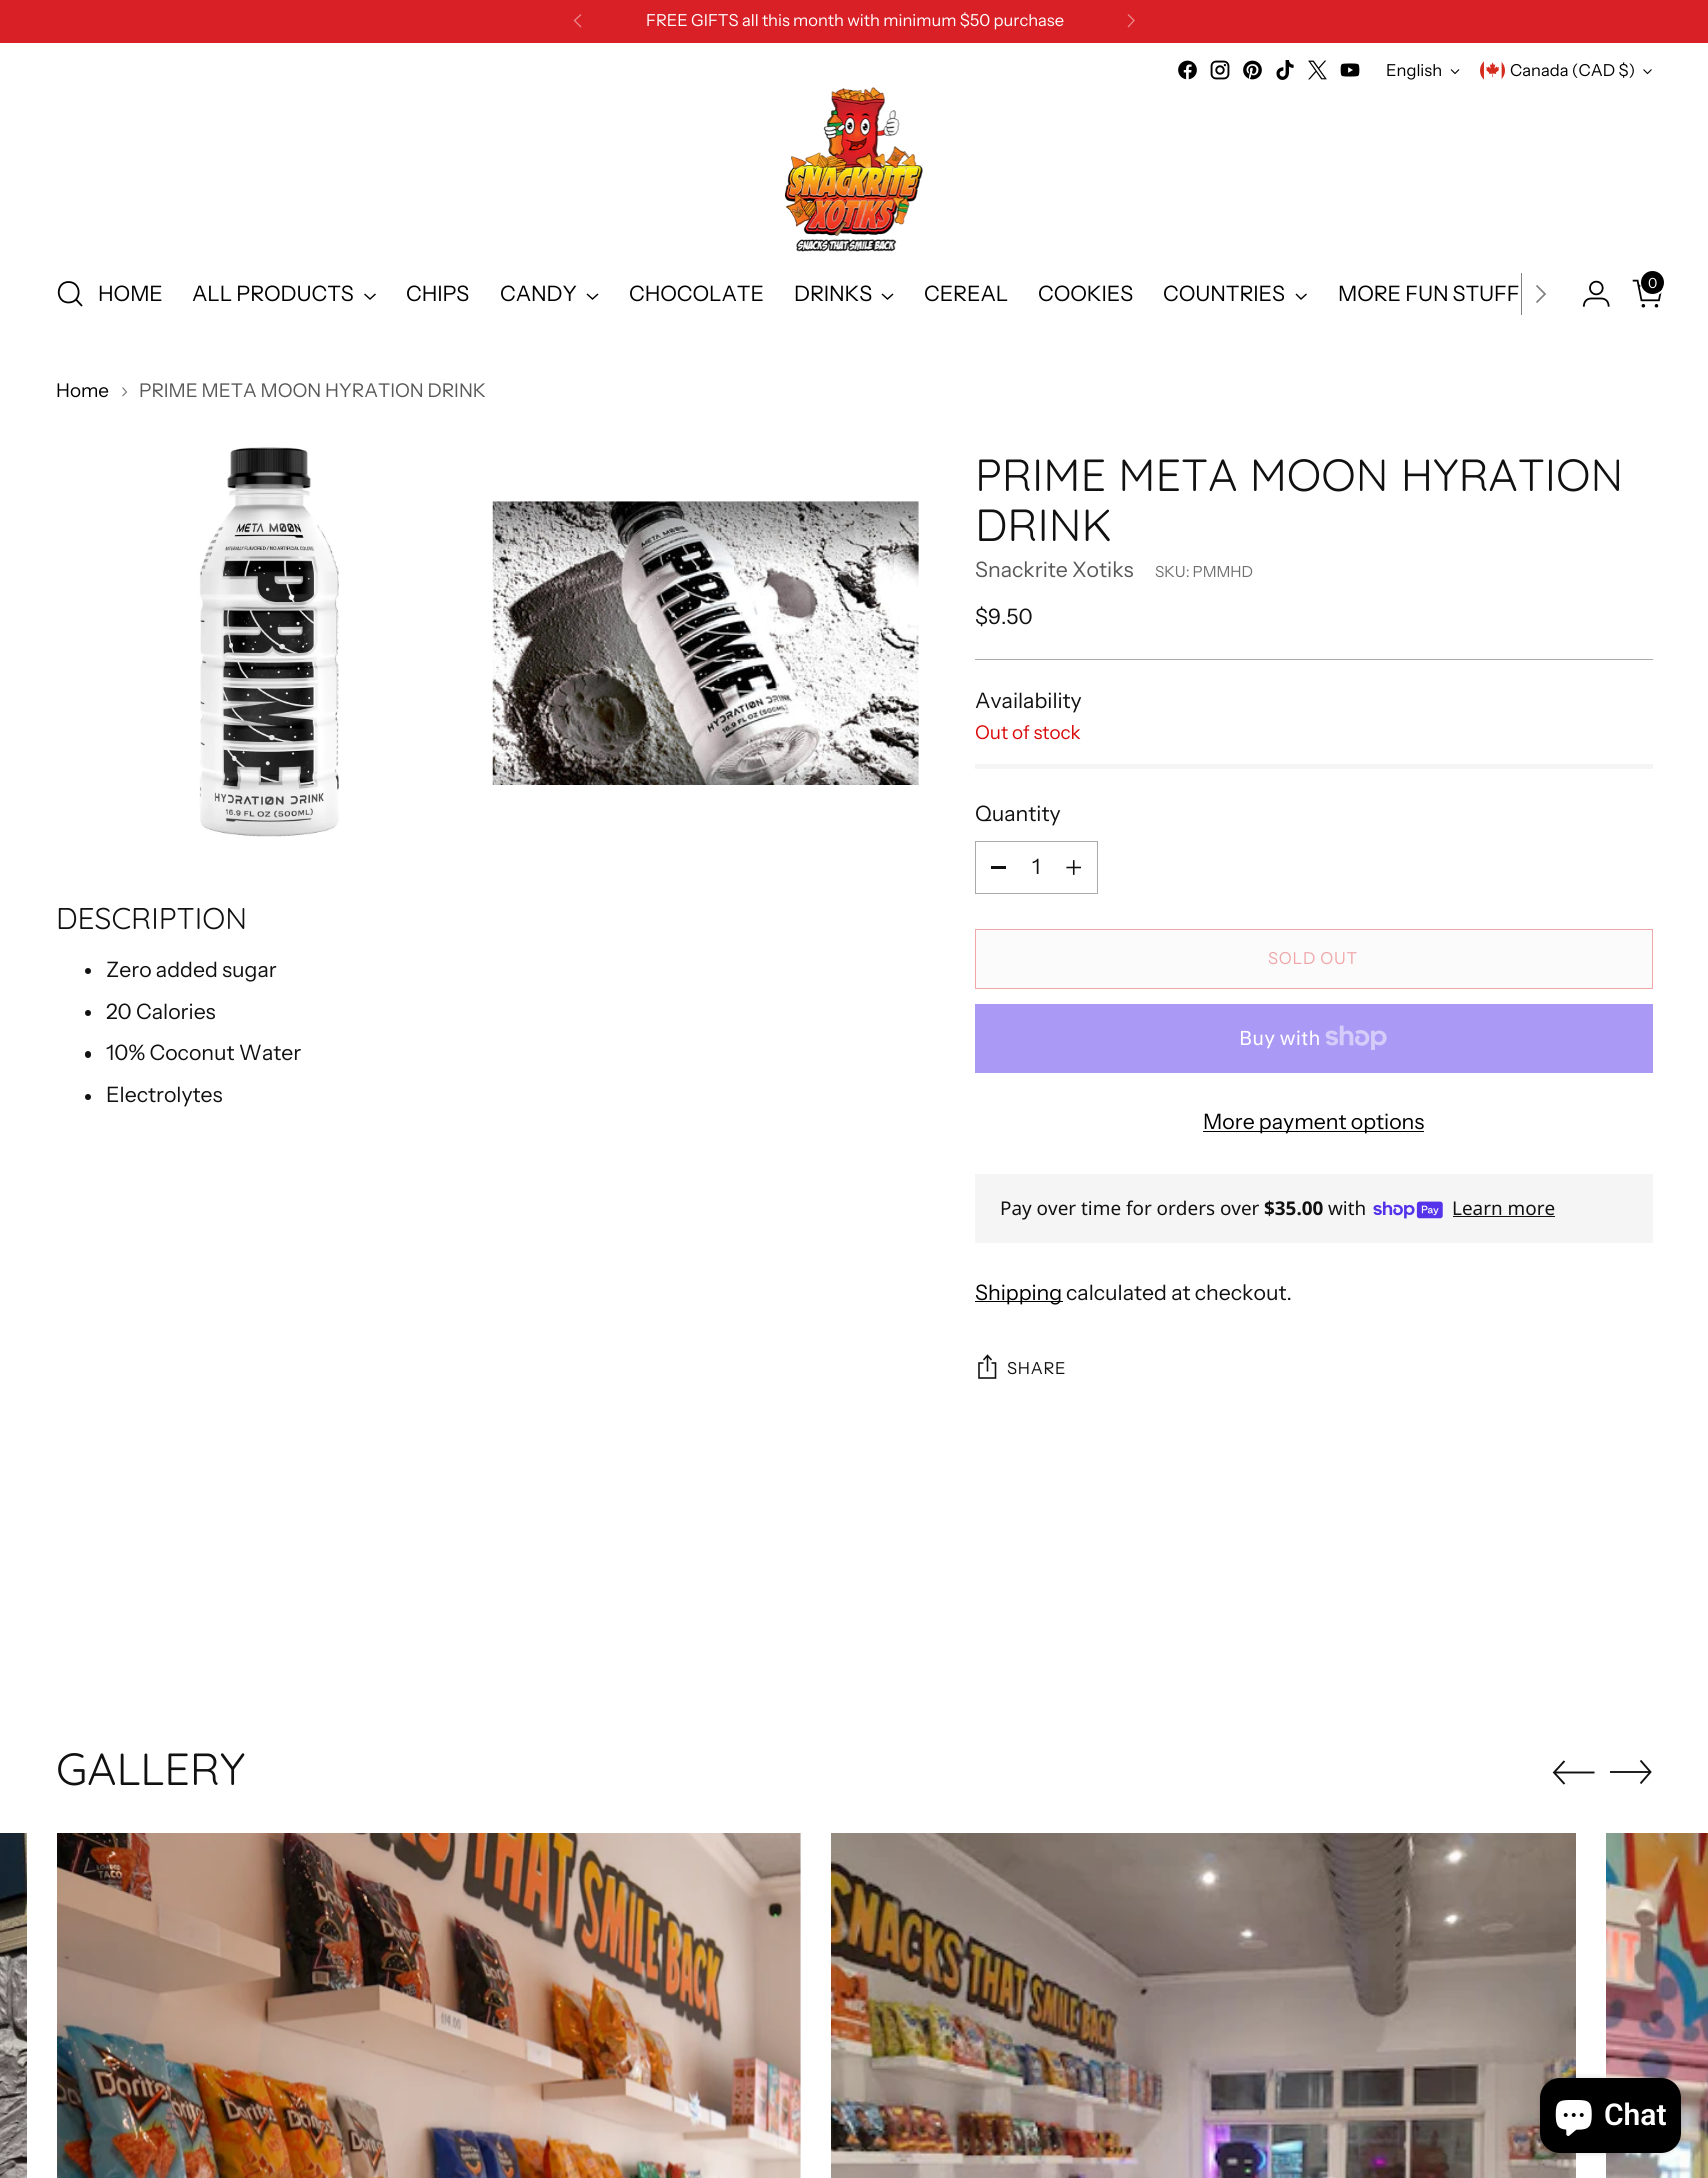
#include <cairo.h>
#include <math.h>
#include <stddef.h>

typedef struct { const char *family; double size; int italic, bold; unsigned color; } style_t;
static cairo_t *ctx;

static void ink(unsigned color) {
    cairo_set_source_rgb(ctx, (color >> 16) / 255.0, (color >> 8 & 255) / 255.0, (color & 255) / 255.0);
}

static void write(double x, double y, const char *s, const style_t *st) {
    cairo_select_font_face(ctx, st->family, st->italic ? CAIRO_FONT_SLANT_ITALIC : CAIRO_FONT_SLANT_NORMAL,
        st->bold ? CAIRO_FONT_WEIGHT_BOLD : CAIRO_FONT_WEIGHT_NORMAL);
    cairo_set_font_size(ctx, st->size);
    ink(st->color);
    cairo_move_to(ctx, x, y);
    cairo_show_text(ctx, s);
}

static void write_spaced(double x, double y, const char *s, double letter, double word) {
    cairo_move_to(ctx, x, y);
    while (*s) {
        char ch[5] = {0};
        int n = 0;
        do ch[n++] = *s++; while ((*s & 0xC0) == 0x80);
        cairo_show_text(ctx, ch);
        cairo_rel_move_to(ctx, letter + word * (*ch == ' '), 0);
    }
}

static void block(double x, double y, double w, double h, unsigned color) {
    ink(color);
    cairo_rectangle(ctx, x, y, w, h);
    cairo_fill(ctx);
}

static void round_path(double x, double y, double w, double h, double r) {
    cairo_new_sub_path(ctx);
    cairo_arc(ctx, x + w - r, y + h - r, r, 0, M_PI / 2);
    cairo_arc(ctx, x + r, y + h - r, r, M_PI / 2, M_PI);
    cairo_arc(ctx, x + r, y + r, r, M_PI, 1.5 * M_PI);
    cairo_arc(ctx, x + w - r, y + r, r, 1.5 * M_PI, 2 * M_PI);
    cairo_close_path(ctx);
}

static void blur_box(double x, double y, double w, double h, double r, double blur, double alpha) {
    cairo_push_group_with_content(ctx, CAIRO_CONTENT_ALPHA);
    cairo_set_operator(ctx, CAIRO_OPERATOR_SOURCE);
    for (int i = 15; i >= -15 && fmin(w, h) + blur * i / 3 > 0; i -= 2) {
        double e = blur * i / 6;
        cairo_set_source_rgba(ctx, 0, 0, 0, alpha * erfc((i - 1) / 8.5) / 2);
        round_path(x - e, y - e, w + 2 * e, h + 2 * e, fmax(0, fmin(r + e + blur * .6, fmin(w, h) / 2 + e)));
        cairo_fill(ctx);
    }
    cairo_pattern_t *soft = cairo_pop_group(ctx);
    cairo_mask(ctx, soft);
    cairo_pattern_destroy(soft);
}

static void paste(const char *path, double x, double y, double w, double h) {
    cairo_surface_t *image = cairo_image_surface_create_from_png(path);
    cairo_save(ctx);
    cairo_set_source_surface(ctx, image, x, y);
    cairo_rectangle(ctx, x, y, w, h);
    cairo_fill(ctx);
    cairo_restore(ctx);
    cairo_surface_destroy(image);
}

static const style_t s1 = {"Instrument Sans", 16.5, 0, 0, 0xffffff};
static const style_t s2 = {"Instrument Sans", 16.5, 0, 0, 0x000000};
static const style_t s3 = {"Instrument Sans", 14, 0, 0, 0xffffff};
static const style_t s4 = {"Instrument Sans", 18.9, 0, 0, 0x000000};
static const style_t s5 = {"Instrument Sans", 18.9, 0, 0, 0x585858};
static const style_t s6 = {"Quicksand", 30, 0, 0, 0x111111};
static const style_t s7 = {"Instrument Sans", 21.25, 0, 0, 0x111111};
static const style_t s8 = {"Quicksand", 45, 0, 0, 0x111111};
static const style_t s9 = {"Instrument Sans", 21.25, 0, 0, 0x585858};
static const style_t s10 = {"Instrument Sans", 15.25, 0, 0, 0x707070};
static const style_t s11 = {"Instrument Sans", 18.9, 0, 0, 0xda0808};
static const style_t s12 = {"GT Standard", 20, 0, 0, 0xffffff};
static const style_t s13 = {"Instrument Sans", 21.25, 0, 0, 0x000000};
static const style_t s14 = {"Noto Sans", 18.9, 0, 0, 0x111111};
static const style_t s15 = {"Noto Sans", 18.9, 0, 1, 0x111111};
static const style_t s16 = {"Roboto SemiBold", 30, 0, 0, 0xffffff};

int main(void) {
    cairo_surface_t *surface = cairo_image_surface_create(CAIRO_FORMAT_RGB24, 1708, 2178);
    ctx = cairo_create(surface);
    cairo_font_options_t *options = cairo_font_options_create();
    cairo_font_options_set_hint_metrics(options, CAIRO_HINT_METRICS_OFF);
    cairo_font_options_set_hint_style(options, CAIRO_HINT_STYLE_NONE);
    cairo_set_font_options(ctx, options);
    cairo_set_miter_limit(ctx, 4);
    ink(0xffffff);
    cairo_paint(ctx);
    block(0, 0, 1708, 43, 0xd92026);
    write(646, 26, "FREE GIFTS all this month with minimum $50 purchase", &s1);
    cairo_new_path(ctx);
    cairo_move_to(ctx, 581, 14.5);
    cairo_line_to(ctx, 574.5, 20.5);
    cairo_line_to(ctx, 581, 27);
    ink(0xec9093);
    cairo_set_line_width(ctx, 1.2);
    cairo_stroke(ctx);
    cairo_new_path(ctx);
    cairo_move_to(ctx, 1128, 27);
    cairo_line_to(ctx, 1134, 20.5);
    cairo_line_to(ctx, 1128, 14.5);
    cairo_stroke(ctx);
    paste("pic1.png", 1178, 60, 19, 20);
    paste("pic2.png", 1210, 60, 20, 20);
    paste("pic3.png", 1243, 60, 19, 20);
    paste("pic4.png", 1276, 60, 18, 20);
    paste("pic5.png", 1308, 60, 19, 20);
    paste("pic6.png", 1340, 63, 20, 14);
    write(1386, 76, "English", &s2);
    cairo_new_path(ctx);
    cairo_move_to(ctx, 1451, 69.5);
    cairo_line_to(ctx, 1455, 73.5);
    cairo_line_to(ctx, 1459, 69.5);
    cairo_set_line_width(ctx, 1.1);
    cairo_stroke(ctx);
    paste("pic7.png", 1480, 61, 25, 19);
    write(1510, 76, "Canada (CAD $)", &s2);
    cairo_new_path(ctx);
    cairo_move_to(ctx, 1643.5, 69.5);
    cairo_line_to(ctx, 1647.5, 73.5);
    cairo_line_to(ctx, 1651.5, 69.5);
    cairo_stroke(ctx);
    paste("pic8.png", 785, 87, 138, 165);
    cairo_new_path(ctx);
    cairo_move_to(ctx, 68.5, 302.5);
    cairo_curve_to(ctx, 82, 302.5, 82, 282, 68.5, 282);
    cairo_curve_to(ctx, 55.5, 282, 55.5, 302.5, 68.5, 302.5);
    cairo_close_path(ctx);
    cairo_set_line_width(ctx, 1.8);
    cairo_set_line_cap(ctx, CAIRO_LINE_CAP_ROUND);
    cairo_stroke(ctx);
    cairo_new_path(ctx);
    cairo_move_to(ctx, 76, 299.5);
    cairo_line_to(ctx, 82, 306);
    cairo_set_line_cap(ctx, CAIRO_LINE_CAP_BUTT);
    cairo_stroke(ctx);
    cairo_set_font_size(ctx, 21.25);
    write_spaced(98, 301, "HOME", -0.1, 0);
    write_spaced(192, 301, "ALL PRODUCTS", -0.1, 0);
    cairo_new_path(ctx);
    cairo_move_to(ctx, 364.5, 294);
    cairo_line_to(ctx, 370, 299);
    cairo_line_to(ctx, 375.5, 294);
    cairo_set_line_width(ctx, 1.4);
    cairo_stroke(ctx);
    write_spaced(406, 301, "CHIPS", -0.1, 0);
    write_spaced(500, 301, "CANDY", -0.1, 0);
    cairo_new_path(ctx);
    cairo_move_to(ctx, 587, 294);
    cairo_line_to(ctx, 592.5, 299);
    cairo_line_to(ctx, 598, 294);
    cairo_stroke(ctx);
    write_spaced(629, 301, "CHOCOLATE", -0.1, 0);
    write_spaced(794, 301, "DRINKS", -0.1, 0);
    cairo_new_path(ctx);
    cairo_move_to(ctx, 882, 294);
    cairo_line_to(ctx, 887.5, 299);
    cairo_line_to(ctx, 893, 294);
    cairo_stroke(ctx);
    write_spaced(924, 301, "CEREAL", -0.1, 0);
    write_spaced(1038, 301, "COOKIES", -0.1, 0);
    write_spaced(1163, 301, "COUNTRIES", -0.1, 0);
    cairo_new_path(ctx);
    cairo_move_to(ctx, 1296, 294);
    cairo_line_to(ctx, 1301, 299);
    cairo_line_to(ctx, 1306.5, 294);
    cairo_stroke(ctx);
    write_spaced(1338, 301, "MORE FUN STUFF", -0.1, 0);
    block(1521, 273, 1, 42, 0x808080);
    cairo_new_path(ctx);
    cairo_move_to(ctx, 1536.5, 302.5);
    cairo_line_to(ctx, 1545, 294);
    cairo_line_to(ctx, 1536.5, 285.5);
    cairo_set_line_width(ctx, 1.7);
    cairo_stroke(ctx);
    paste("pic9.png", 1582, 280, 28, 27);
    paste("pic10.png", 1632, 279, 31, 29);
    cairo_arc(ctx, 1653, 283, 12, 0, 2 * M_PI);
    ink(0xffffff);
    cairo_set_line_width(ctx, 2);
    cairo_stroke(ctx);
    ink(0x000000);
    cairo_arc(ctx, 1652.5, 282.5, 11.5, 0, 2 * M_PI);
    cairo_fill(ctx);
    write(1648, 288, "0", &s3);
    write(56, 397, "Home", &s4);
    cairo_new_path(ctx);
    cairo_move_to(ctx, 122.5, 396);
    cairo_line_to(ctx, 126.5, 392);
    cairo_line_to(ctx, 122.5, 387.5);
    ink(0x707070);
    cairo_set_line_width(ctx, 1.1);
    cairo_stroke(ctx);
    write(139, 397, "PRIME META MOON HYRATION DRINK", &s5);
    paste("pic11.png", 199, 447, 140, 390);
    paste("pic12.png", 492, 501, 427, 284);
    write(56, 929, "DESCRIPTION", &s6);
    cairo_new_path(ctx);
    cairo_arc(ctx, 88, 971, 3, 0, 2 * M_PI);
    cairo_fill(ctx);
    write(106, 977, "Zero added sugar", &s7);
    cairo_new_path(ctx);
    cairo_arc(ctx, 88, 1013, 3, 0, 2 * M_PI);
    cairo_fill(ctx);
    write(106, 1019, "20 Calories", &s7);
    round_path(85, 1051, 6, 7, 3);
    cairo_fill(ctx);
    write(106, 1060, "10% Coconut Water", &s7);
    cairo_new_path(ctx);
    cairo_arc(ctx, 88, 1097, 3, 0, 2 * M_PI);
    cairo_fill(ctx);
    write(106, 1102, "Electrolytes", &s7);
    block(975, 659, 678, 1, 0xaaaaaa);
    write(975, 491, "PRIME META MOON HYRATION", &s8);
    write(975, 541, "DRINK", &s8);
    write(975, 577, "Snackrite Xotiks", &s9);
    write(1155, 577, "SKU: PMMHD", &s10);
    write(975, 624, "$9.50", &s7);
    write(975, 708, "Availability", &s7);
    write(975, 739, "Out of stock", &s11);
    block(975, 764, 678, 5, 0xf5f5f5);
    write(975, 821, "Quantity", &s7);
    cairo_rectangle(ctx, 975.5, 841.5, 122, 52);
    ink(0xaaaaaa);
    cairo_set_line_width(ctx, 1);
    cairo_stroke(ctx);
    block(991, 866, 15, 3, 0x111111);
    write(1032, 874, "1", &s7);
    paste("pic13.png", 1066, 860, 15, 15);
    ink(0xfbfbfb);
    cairo_rectangle(ctx, 975.5, 929.5, 677, 59);
    cairo_fill_preserve(ctx);
    ink(0xf0a6a8);
    cairo_stroke(ctx);
    cairo_set_font_size(ctx, 16.5);
    write_spaced(1268, 964, "SOLD OUT", 0.75, 0);
    block(975, 1004, 678, 69, 0xaa99f5);
    write(1239, 1045, "Buy with", &s12);
    paste("pic14.png", 1325, 1025, 62, 25);
    block(1203, 1131, 221, 1, 0x000000);
    write(1203, 1129, "More payment options", &s13);
    block(975, 1174, 678, 69, 0xf5f5f5);
    write(1000, 1215, "Pay over time for orders over", &s14);
    write(1264, 1215, "$35.00", &s15);
    write(1328, 1215, "with", &s14);
    paste("pic15.png", 1373, 1201, 70, 18);
    write(1452, 1215, "Learn more", &s14);
    block(1453, 1216, 102, 1, 0x111111);
    block(975, 1301, 88, 1, 0x000000);
    write(975, 1300, "Shipping", &s13);
    write(1066, 1300, "calculated at checkout.", &s7);
    cairo_new_path(ctx);
    cairo_move_to(ctx, 983.5, 1363);
    cairo_line_to(ctx, 979, 1363);
    cairo_line_to(ctx, 979, 1378);
    cairo_line_to(ctx, 995.5, 1378);
    cairo_line_to(ctx, 995.5, 1363);
    cairo_line_to(ctx, 991.5, 1363);
    cairo_move_to(ctx, 987.5, 1371.5);
    cairo_line_to(ctx, 987.5, 1356);
    cairo_move_to(ctx, 991.5, 1360);
    cairo_line_to(ctx, 987.5, 1355.5);
    cairo_line_to(ctx, 983.5, 1360);
    cairo_set_line_width(ctx, 1.6);
    cairo_stroke(ctx);
    cairo_set_font_size(ctx, 16.5);
    write_spaced(1007, 1374, "SHARE", 0.75, 0);
    write(56, 1785, "GALLERY", &s8);
    cairo_new_path(ctx);
    cairo_move_to(ctx, 1564.5, 1761);
    cairo_line_to(ctx, 1554, 1772.5);
    cairo_line_to(ctx, 1564.5, 1784);
    cairo_move_to(ctx, 1554, 1772.5);
    cairo_line_to(ctx, 1594.5, 1772.5);
    cairo_set_line_width(ctx, 1.9);
    cairo_stroke(ctx);
    cairo_new_path(ctx);
    cairo_move_to(ctx, 1640.5, 1783.5);
    cairo_line_to(ctx, 1650.5, 1772);
    cairo_line_to(ctx, 1640.5, 1760.5);
    cairo_move_to(ctx, 1650.5, 1772);
    cairo_line_to(ctx, 1610, 1772);
    cairo_stroke(ctx);
    paste("pic16.png", 0, 1833, 27, 345);
    paste("pic17.png", 57, 1833, 744, 345);
    paste("pic18.png", 831, 1833, 745, 345);
    paste("pic19.png", 1606, 1833, 102, 345);
    ink(0x000000);
    blur_box(1540, 2078, 141, 75, 20, 3, 0.15);
    ink(0x000000);
    round_path(1540, 2078, 141, 75, 20);
    cairo_fill(ctx);
    paste("pic20.png", 1555, 2100, 37, 36);
    write(1604, 2125, "Chat", &s16);
    cairo_surface_write_to_png(surface, "screenshot.png");
    cairo_font_options_destroy(options);
    cairo_destroy(ctx);
    cairo_surface_destroy(surface);
    return 0;
}
